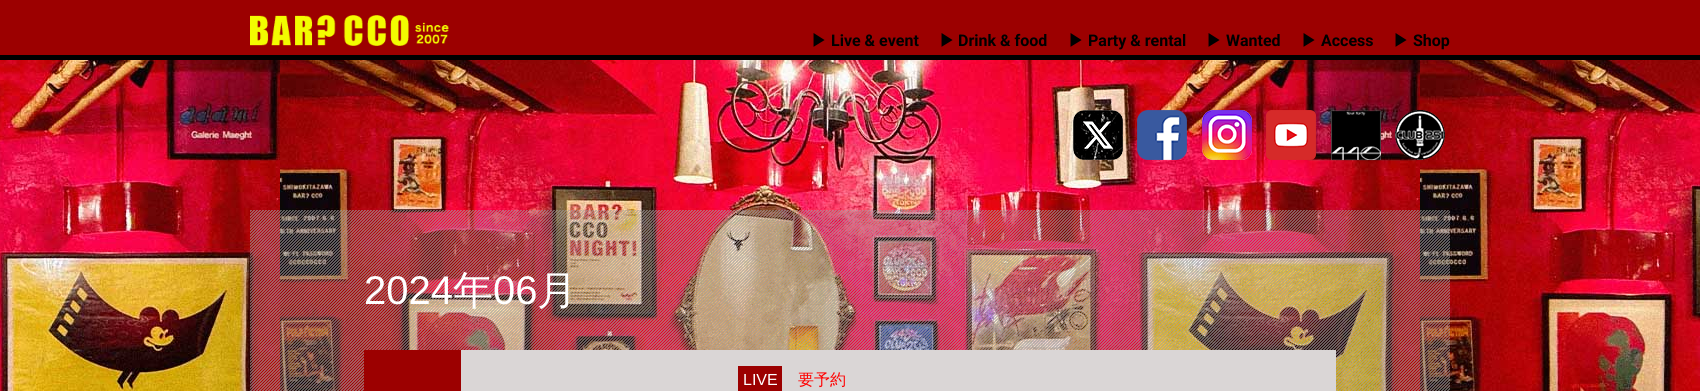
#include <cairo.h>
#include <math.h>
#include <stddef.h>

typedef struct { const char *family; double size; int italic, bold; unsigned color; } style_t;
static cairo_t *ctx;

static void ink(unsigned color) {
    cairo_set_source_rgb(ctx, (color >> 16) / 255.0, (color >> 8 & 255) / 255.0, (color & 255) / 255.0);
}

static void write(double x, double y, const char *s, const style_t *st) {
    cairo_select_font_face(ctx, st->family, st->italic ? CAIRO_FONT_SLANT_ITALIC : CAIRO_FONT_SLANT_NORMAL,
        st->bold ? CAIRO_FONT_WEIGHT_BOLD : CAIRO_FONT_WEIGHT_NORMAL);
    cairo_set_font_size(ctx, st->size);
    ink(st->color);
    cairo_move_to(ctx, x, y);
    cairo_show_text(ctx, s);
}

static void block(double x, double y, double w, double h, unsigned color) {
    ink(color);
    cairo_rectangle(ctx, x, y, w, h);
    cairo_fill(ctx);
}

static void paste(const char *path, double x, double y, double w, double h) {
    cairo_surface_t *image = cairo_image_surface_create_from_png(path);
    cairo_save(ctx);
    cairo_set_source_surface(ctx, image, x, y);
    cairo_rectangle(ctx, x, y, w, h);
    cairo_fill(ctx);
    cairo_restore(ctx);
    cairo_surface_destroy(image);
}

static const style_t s1 = {"WenQuanYi Zen Hei", 16, 0, 1, 0x000000};
static const style_t s2 = {"Roboto", 16, 0, 1, 0x000000};
static const style_t s3 = {"Liberation Sans", 40, 0, 0, 0xffffff};
static const style_t s4 = {"WenQuanYi Zen Hei Medium", 40, 0, 0, 0xffffff};
static const style_t s5 = {"Liberation Sans", 16, 0, 0, 0xffffff};
static const style_t s6 = {"WenQuanYi Zen Hei Medium", 16, 0, 0, 0xff0000};

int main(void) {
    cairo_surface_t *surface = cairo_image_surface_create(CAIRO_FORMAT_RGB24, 1700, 391);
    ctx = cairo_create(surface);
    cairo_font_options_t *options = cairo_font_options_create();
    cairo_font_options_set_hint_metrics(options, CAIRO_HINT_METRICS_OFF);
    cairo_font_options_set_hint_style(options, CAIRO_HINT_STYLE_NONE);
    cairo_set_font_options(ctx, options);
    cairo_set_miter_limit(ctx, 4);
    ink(0x9c0000);
    cairo_paint(ctx);
    block(0, 55, 1700, 5, 0x000000);
    paste("pic1.png", 250, 15, 199, 31);
    write(811, 46, "▶", &s1);
    write(831, 46, "Live & event", &s2);
    write(939, 46, "▶", &s1);
    write(958, 46, "Drink & food", &s2);
    write(1068, 46, "▶", &s1);
    write(1088, 46, "Party & rental", &s2);
    write(1206, 46, "▶", &s1);
    write(1226, 46, "Wanted", &s2);
    write(1301, 46, "▶", &s1);
    write(1321, 46, "Access", &s2);
    write(1393, 46, "▶", &s1);
    write(1413, 46, "Shop", &s2);
    paste("pic2.png", 0, 60, 1700, 331);
    paste("pic3.png", 1073, 110, 50, 50);
    paste("pic4.png", 1137, 110, 50, 50);
    paste("pic5.png", 1202, 110, 50, 50);
    paste("pic6.png", 1266, 110, 50, 50);
    paste("pic7.png", 1331, 110, 50, 50);
    paste("pic8.png", 1395, 110, 50, 50);
    paste("pic9.png", 250, 210, 1200, 181);
    write(364, 304, "2024", &s3);
    write(453, 304, "年", &s4);
    write(493, 304, "06", &s3);
    write(537, 304, "月", &s4);
    block(364, 350, 97, 41, 0x9c0000);
    block(461, 350, 875, 41, 0xdad6d6);
    block(738, 366, 44, 25, 0x9c0000);
    write(743, 385, "LIVE", &s5);
    write(798, 385, "要予約", &s6);
    cairo_surface_write_to_png(surface, "screenshot.png");
    cairo_font_options_destroy(options);
    cairo_destroy(ctx);
    cairo_surface_destroy(surface);
    return 0;
}
